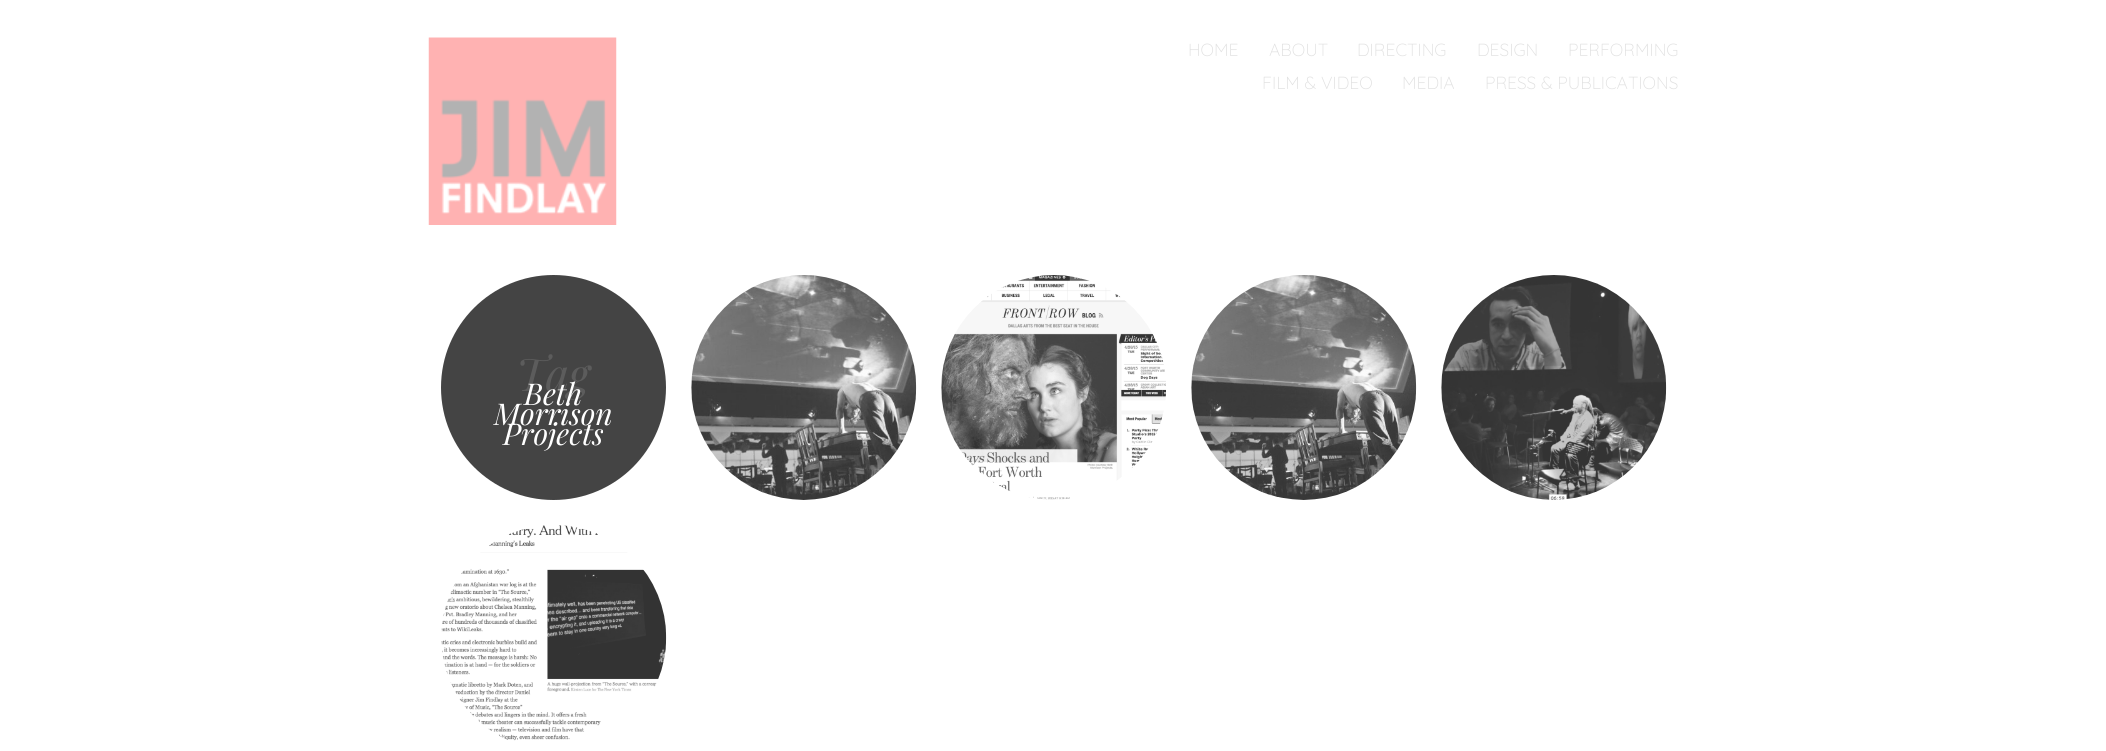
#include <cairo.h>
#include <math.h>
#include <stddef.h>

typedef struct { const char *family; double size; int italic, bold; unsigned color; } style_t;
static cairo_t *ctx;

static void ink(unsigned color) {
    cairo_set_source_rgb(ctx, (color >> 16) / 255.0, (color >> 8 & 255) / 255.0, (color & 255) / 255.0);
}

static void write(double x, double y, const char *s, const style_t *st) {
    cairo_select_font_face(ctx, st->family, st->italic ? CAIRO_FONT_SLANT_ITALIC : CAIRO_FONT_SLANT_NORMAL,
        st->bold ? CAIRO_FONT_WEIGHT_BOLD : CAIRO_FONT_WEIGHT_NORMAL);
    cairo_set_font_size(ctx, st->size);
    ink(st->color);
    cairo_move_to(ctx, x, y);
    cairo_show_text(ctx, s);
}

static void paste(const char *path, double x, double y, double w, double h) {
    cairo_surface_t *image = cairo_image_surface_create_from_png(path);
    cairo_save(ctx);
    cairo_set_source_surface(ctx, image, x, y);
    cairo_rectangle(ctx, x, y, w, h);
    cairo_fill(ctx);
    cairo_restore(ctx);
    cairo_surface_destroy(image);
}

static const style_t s1 = {"Quicksand Light", 17.5, 0, 0, 0xe0e0e0};
static const style_t s2 = {"Playfair Display", 45, 1, 0, 0x5c5c5c};
static const style_t s3 = {"Playfair Display", 30, 1, 0, 0xffffff};

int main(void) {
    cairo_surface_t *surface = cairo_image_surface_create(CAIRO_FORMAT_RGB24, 2106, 751);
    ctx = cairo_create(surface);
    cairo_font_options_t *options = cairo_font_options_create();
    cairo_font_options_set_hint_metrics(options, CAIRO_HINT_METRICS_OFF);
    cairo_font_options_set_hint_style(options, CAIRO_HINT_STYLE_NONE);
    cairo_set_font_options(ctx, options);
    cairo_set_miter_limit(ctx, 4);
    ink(0xffffff);
    cairo_paint(ctx);
    paste("pic1.png", 428, 37, 189, 188);
    write(1188, 56, "HOME", &s1);
    write(1269, 56, "ABOUT", &s1);
    write(1357, 56, "DIRECTING", &s1);
    write(1477, 56, "DESIGN", &s1);
    write(1568, 56, "PERFORMING", &s1);
    write(1262, 89, "FILM & VIDEO", &s1);
    write(1402, 89, "MEDIA", &s1);
    write(1485, 89, "PRESS & PUBLICATIONS", &s1);
    ink(0x444444);
    cairo_new_path(ctx);
    cairo_arc(ctx, 553.5, 387.5, 112.5, 0, 2 * M_PI);
    cairo_fill(ctx);
    write(516, 391, "Tag", &s2);
    write(524, 405, "Beth", &s3);
    write(494, 425, "Morrison", &s3);
    write(503, 445, "Projects", &s3);
    paste("pic2.png", 691, 275, 226, 225);
    paste("pic3.png", 941, 275, 225, 225);
    paste("pic4.png", 1191, 275, 226, 225);
    paste("pic5.png", 1441, 275, 226, 225);
    paste("pic6.png", 441, 525, 226, 216);
    cairo_surface_write_to_png(surface, "screenshot.png");
    cairo_font_options_destroy(options);
    cairo_destroy(ctx);
    cairo_surface_destroy(surface);
    return 0;
}
